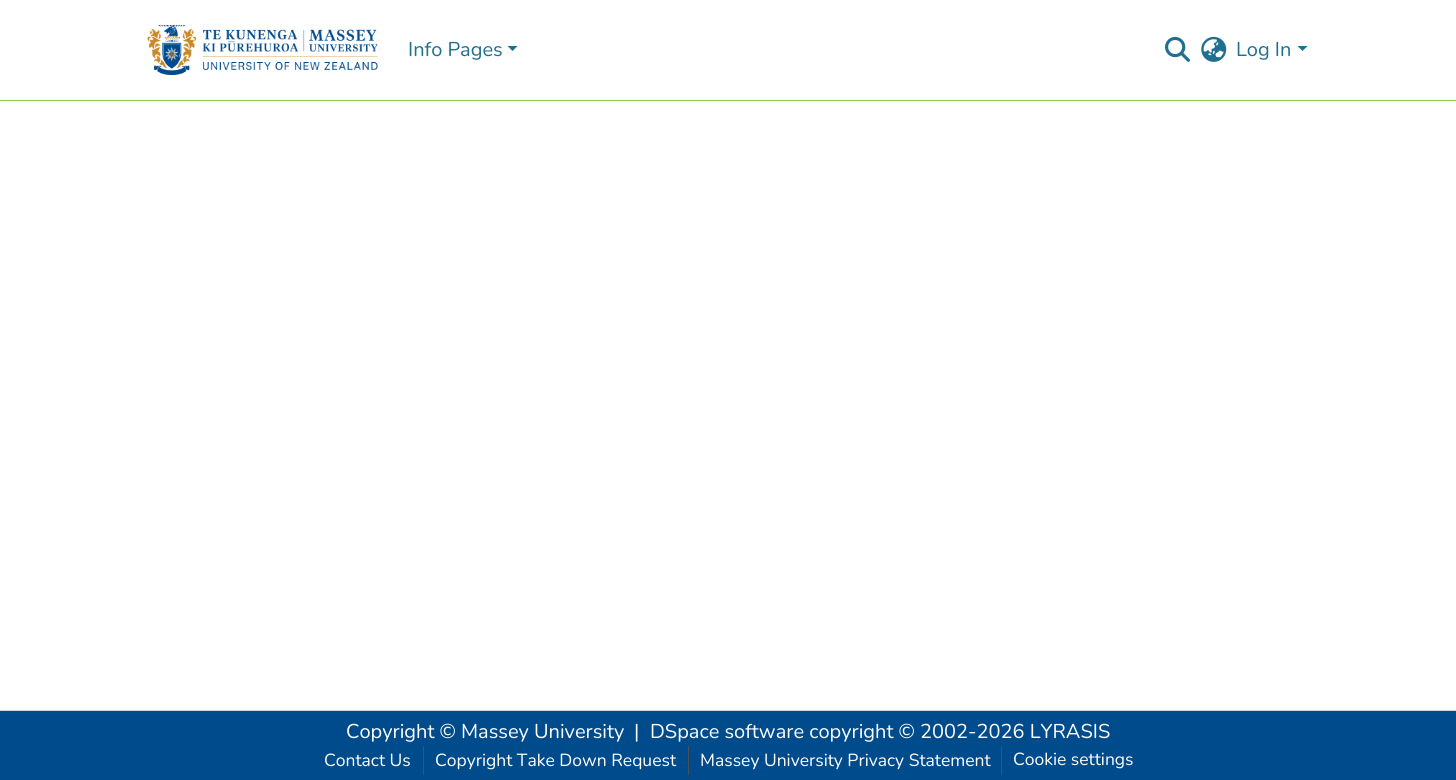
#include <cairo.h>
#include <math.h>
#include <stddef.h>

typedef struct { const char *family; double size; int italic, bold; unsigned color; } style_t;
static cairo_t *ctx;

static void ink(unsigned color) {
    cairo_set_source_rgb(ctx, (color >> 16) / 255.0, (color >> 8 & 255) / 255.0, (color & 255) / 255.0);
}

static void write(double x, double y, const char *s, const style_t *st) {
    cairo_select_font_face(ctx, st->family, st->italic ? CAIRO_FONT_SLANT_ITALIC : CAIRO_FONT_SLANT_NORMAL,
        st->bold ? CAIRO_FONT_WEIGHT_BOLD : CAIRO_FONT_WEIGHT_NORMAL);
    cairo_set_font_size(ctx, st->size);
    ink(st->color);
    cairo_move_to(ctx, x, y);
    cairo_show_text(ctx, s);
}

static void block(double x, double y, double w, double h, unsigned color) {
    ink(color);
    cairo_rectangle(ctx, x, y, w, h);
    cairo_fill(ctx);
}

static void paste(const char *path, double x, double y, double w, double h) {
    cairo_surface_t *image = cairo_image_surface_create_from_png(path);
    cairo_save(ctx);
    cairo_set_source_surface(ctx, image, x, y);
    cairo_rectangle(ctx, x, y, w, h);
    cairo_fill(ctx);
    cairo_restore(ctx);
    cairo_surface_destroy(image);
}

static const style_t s1 = {"Nunito", 20, 0, 0, 0x1e6f90};
static const style_t s2 = {"Nunito", 20, 0, 0, 0xffffff};
static const style_t s3 = {"Nunito", 17.5, 0, 0, 0xffffff};

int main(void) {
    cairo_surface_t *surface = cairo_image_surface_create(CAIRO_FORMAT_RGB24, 1456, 780);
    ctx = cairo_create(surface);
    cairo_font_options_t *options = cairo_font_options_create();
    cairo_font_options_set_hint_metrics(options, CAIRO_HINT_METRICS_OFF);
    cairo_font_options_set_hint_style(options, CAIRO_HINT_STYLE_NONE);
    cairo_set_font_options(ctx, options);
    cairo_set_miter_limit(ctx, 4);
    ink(0xffffff);
    cairo_paint(ctx);
    block(0, 100, 1456, 1, 0x92c642);
    paste("pic1.png", 147, 25, 231, 50);
    write(408, 56, "Info Pages", &s1);
    cairo_new_path(ctx);
    cairo_move_to(ctx, 507.5, 46);
    cairo_line_to(ctx, 517.5, 46);
    cairo_line_to(ctx, 512.5, 51);
    cairo_close_path(ctx);
    cairo_fill(ctx);
    paste("pic2.png", 1165, 36, 25, 26);
    paste("pic3.png", 1201, 36, 26, 26);
    write(1236, 56, "Log In", &s1);
    cairo_new_path(ctx);
    cairo_move_to(ctx, 1297.5, 46);
    cairo_line_to(ctx, 1307.5, 46);
    cairo_line_to(ctx, 1302.5, 51);
    cairo_close_path(ctx);
    cairo_fill(ctx);
    block(0, 711, 1456, 69, 0x004b8c);
    block(0, 710, 1456, 1, 0xced4da);
    write(346, 738, "Copyright © Massey University", &s2);
    write(634, 738, "|", &s2);
    write(650, 738, "DSpace software copyright © 2002-2026 LYRASIS", &s2);
    write(324, 766, "Contact Us", &s3);
    block(423, 746, 1, 29, 0x495057);
    write(435, 766, "Copyright Take Down Request", &s3);
    block(688, 746, 1, 29, 0x495057);
    write(700, 766, "Massey University Privacy Statement", &s3);
    block(1001, 746, 1, 29, 0x495057);
    write(1013, 765, "Cookie settings", &s3);
    cairo_surface_write_to_png(surface, "screenshot.png");
    cairo_font_options_destroy(options);
    cairo_destroy(ctx);
    cairo_surface_destroy(surface);
    return 0;
}
